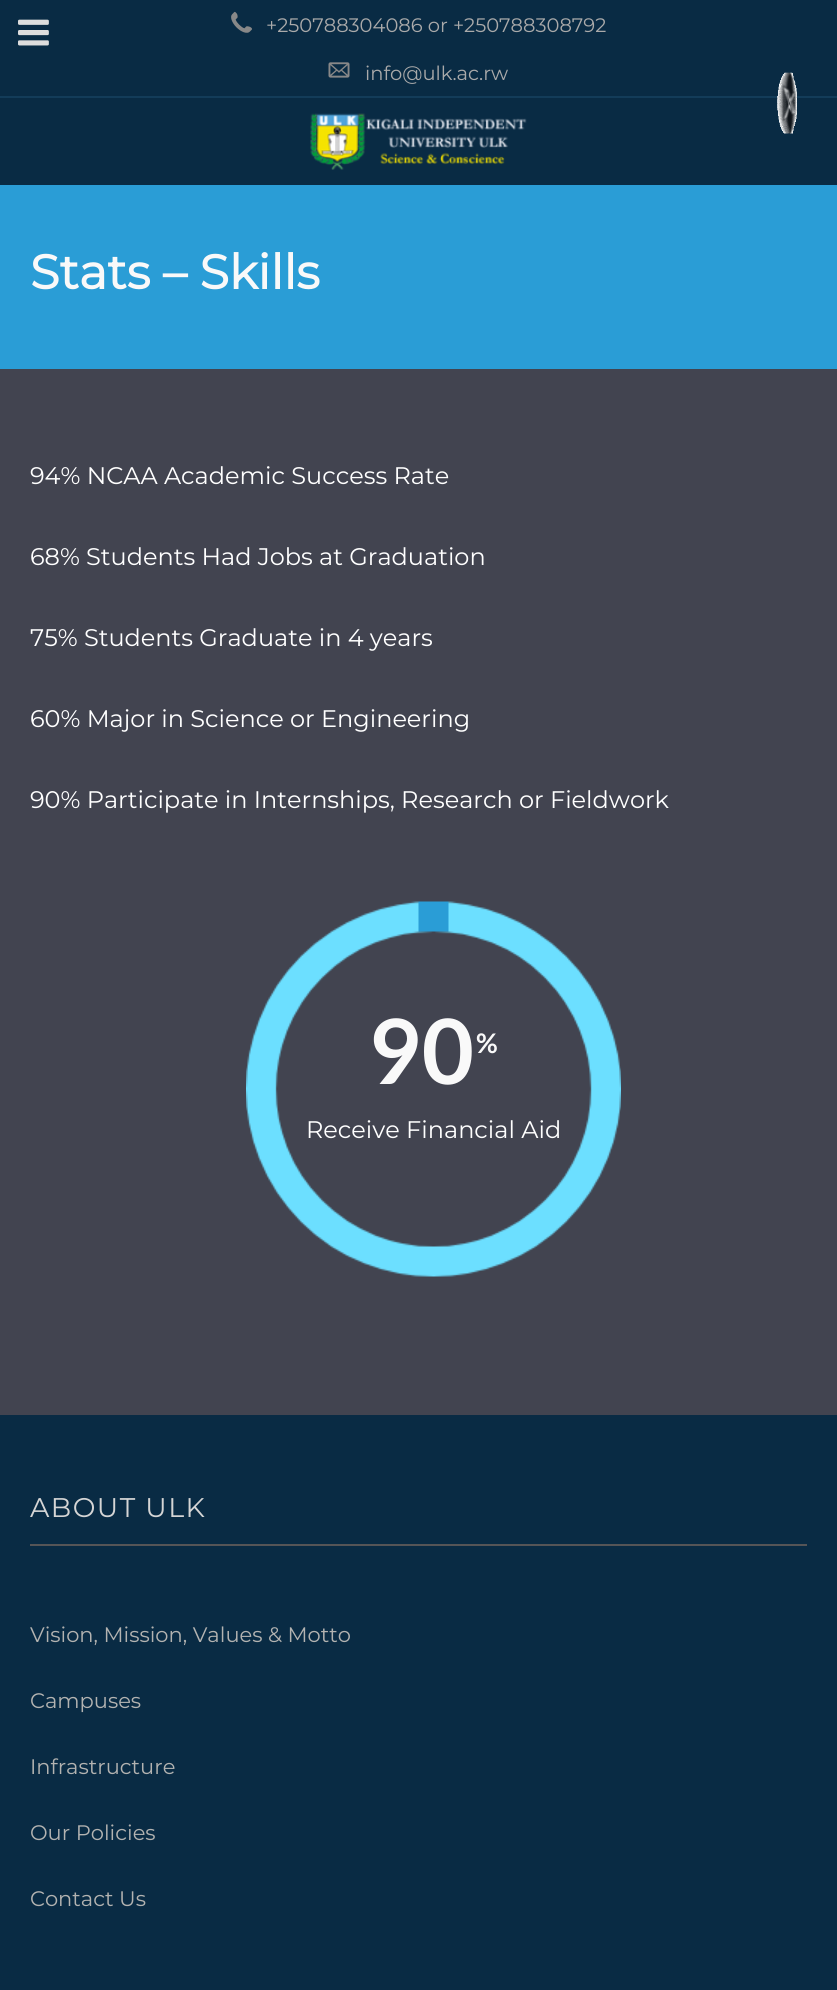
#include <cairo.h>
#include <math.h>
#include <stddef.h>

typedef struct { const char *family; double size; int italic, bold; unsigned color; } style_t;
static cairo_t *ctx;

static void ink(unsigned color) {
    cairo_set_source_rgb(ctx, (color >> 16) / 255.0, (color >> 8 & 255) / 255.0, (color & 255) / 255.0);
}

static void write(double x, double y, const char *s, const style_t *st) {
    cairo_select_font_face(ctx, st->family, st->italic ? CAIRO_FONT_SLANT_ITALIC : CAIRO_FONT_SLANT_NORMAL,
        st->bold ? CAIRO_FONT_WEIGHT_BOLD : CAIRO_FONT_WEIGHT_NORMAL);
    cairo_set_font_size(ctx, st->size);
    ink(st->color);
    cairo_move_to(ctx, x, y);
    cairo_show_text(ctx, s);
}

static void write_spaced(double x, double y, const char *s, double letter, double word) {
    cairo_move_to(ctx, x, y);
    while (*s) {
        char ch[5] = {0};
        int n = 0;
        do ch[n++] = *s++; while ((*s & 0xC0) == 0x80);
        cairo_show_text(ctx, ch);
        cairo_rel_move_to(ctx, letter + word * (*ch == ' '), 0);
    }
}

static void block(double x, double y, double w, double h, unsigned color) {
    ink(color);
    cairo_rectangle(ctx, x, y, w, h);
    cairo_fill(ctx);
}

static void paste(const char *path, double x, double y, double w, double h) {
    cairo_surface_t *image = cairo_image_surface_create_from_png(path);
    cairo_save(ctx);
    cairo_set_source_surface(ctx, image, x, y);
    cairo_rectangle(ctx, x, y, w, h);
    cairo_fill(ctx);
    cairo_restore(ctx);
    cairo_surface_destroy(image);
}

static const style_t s1 = {"Montserrat Thin", 19.5, 0, 0, 0xaaaaaa};
static const style_t s2 = {"Montserrat", 48, 0, 1, 0xf9f9f9};
static const style_t s3 = {"Montserrat Thin", 24, 0, 0, 0xffffff};
static const style_t s4 = {"Montserrat Thin", 21, 0, 0, 0xb3b3b1};

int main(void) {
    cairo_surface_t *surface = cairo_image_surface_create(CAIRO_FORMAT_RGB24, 837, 1990);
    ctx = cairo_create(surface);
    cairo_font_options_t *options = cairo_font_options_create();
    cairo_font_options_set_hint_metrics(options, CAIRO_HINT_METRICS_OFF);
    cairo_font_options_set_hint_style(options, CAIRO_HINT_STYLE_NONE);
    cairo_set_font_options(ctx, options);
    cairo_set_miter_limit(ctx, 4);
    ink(0x2a9dd6);
    cairo_paint(ctx);
    block(0, 0, 837, 185, 0x092b44);
    block(0, 96, 837, 2, 0x133c59);
    paste("pic1.png", 231, 11, 21, 22);
    write(266, 32, "+250788304086 or +250788308792", &s1);
    paste("pic2.png", 328, 62, 22, 16);
    write(365, 80, "info@ulk.ac.rw", &s1);
    paste("pic3.png", 310, 113, 217, 57);
    write(30, 289, "Stats – Skills", &s2);
    block(0, 369, 837, 1046, 0x424450);
    write(30, 484, "94% NCAA Academic Success Rate", &s3);
    write(30, 565, "68% Students Had Jobs at Graduation", &s3);
    write(30, 646, "75% Students Graduate in 4 years", &s3);
    write(30, 727, "60% Major in Science or Engineering", &s3);
    write(30, 808, "90% Participate in Internships, Research or Fieldwork", &s3);
    cairo_select_font_face(ctx, "Lato", CAIRO_FONT_SLANT_NORMAL, CAIRO_FONT_WEIGHT_BOLD);
    cairo_set_font_size(ctx, 90);
    ink(0xf9f9f9);
    write_spaced(368, 1084, "90", 1.5, 0);
    cairo_set_font_size(ctx, 27);
    write_spaced(476, 1053, "%", 1.5, 0);
    paste("pic4.png", 246, 901, 375, 376);
    write(306, 1138, "Receive Financial Aid", &s3);
    block(0, 1415, 837, 575, 0x092b44);
    block(30, 1544, 777, 2, 0x555557);
    cairo_set_font_size(ctx, 27);
    ink(0xd5d5d5);
    write_spaced(30, 1517, "ABOUT ULK", 1.5, 0);
    write(30, 1642, "Vision, Mission, Values & Motto", &s4);
    write(30, 1708, "Campuses", &s4);
    write(30, 1774, "Infrastructure", &s4);
    write(30, 1840, "Our Policies", &s4);
    write(30, 1906, "Contact Us", &s4);
    paste("pic5.png", 18, 19, 31, 27);
    paste("pic6.png", 777, 72, 20, 62);
    cairo_surface_write_to_png(surface, "screenshot.png");
    cairo_font_options_destroy(options);
    cairo_destroy(ctx);
    cairo_surface_destroy(surface);
    return 0;
}
